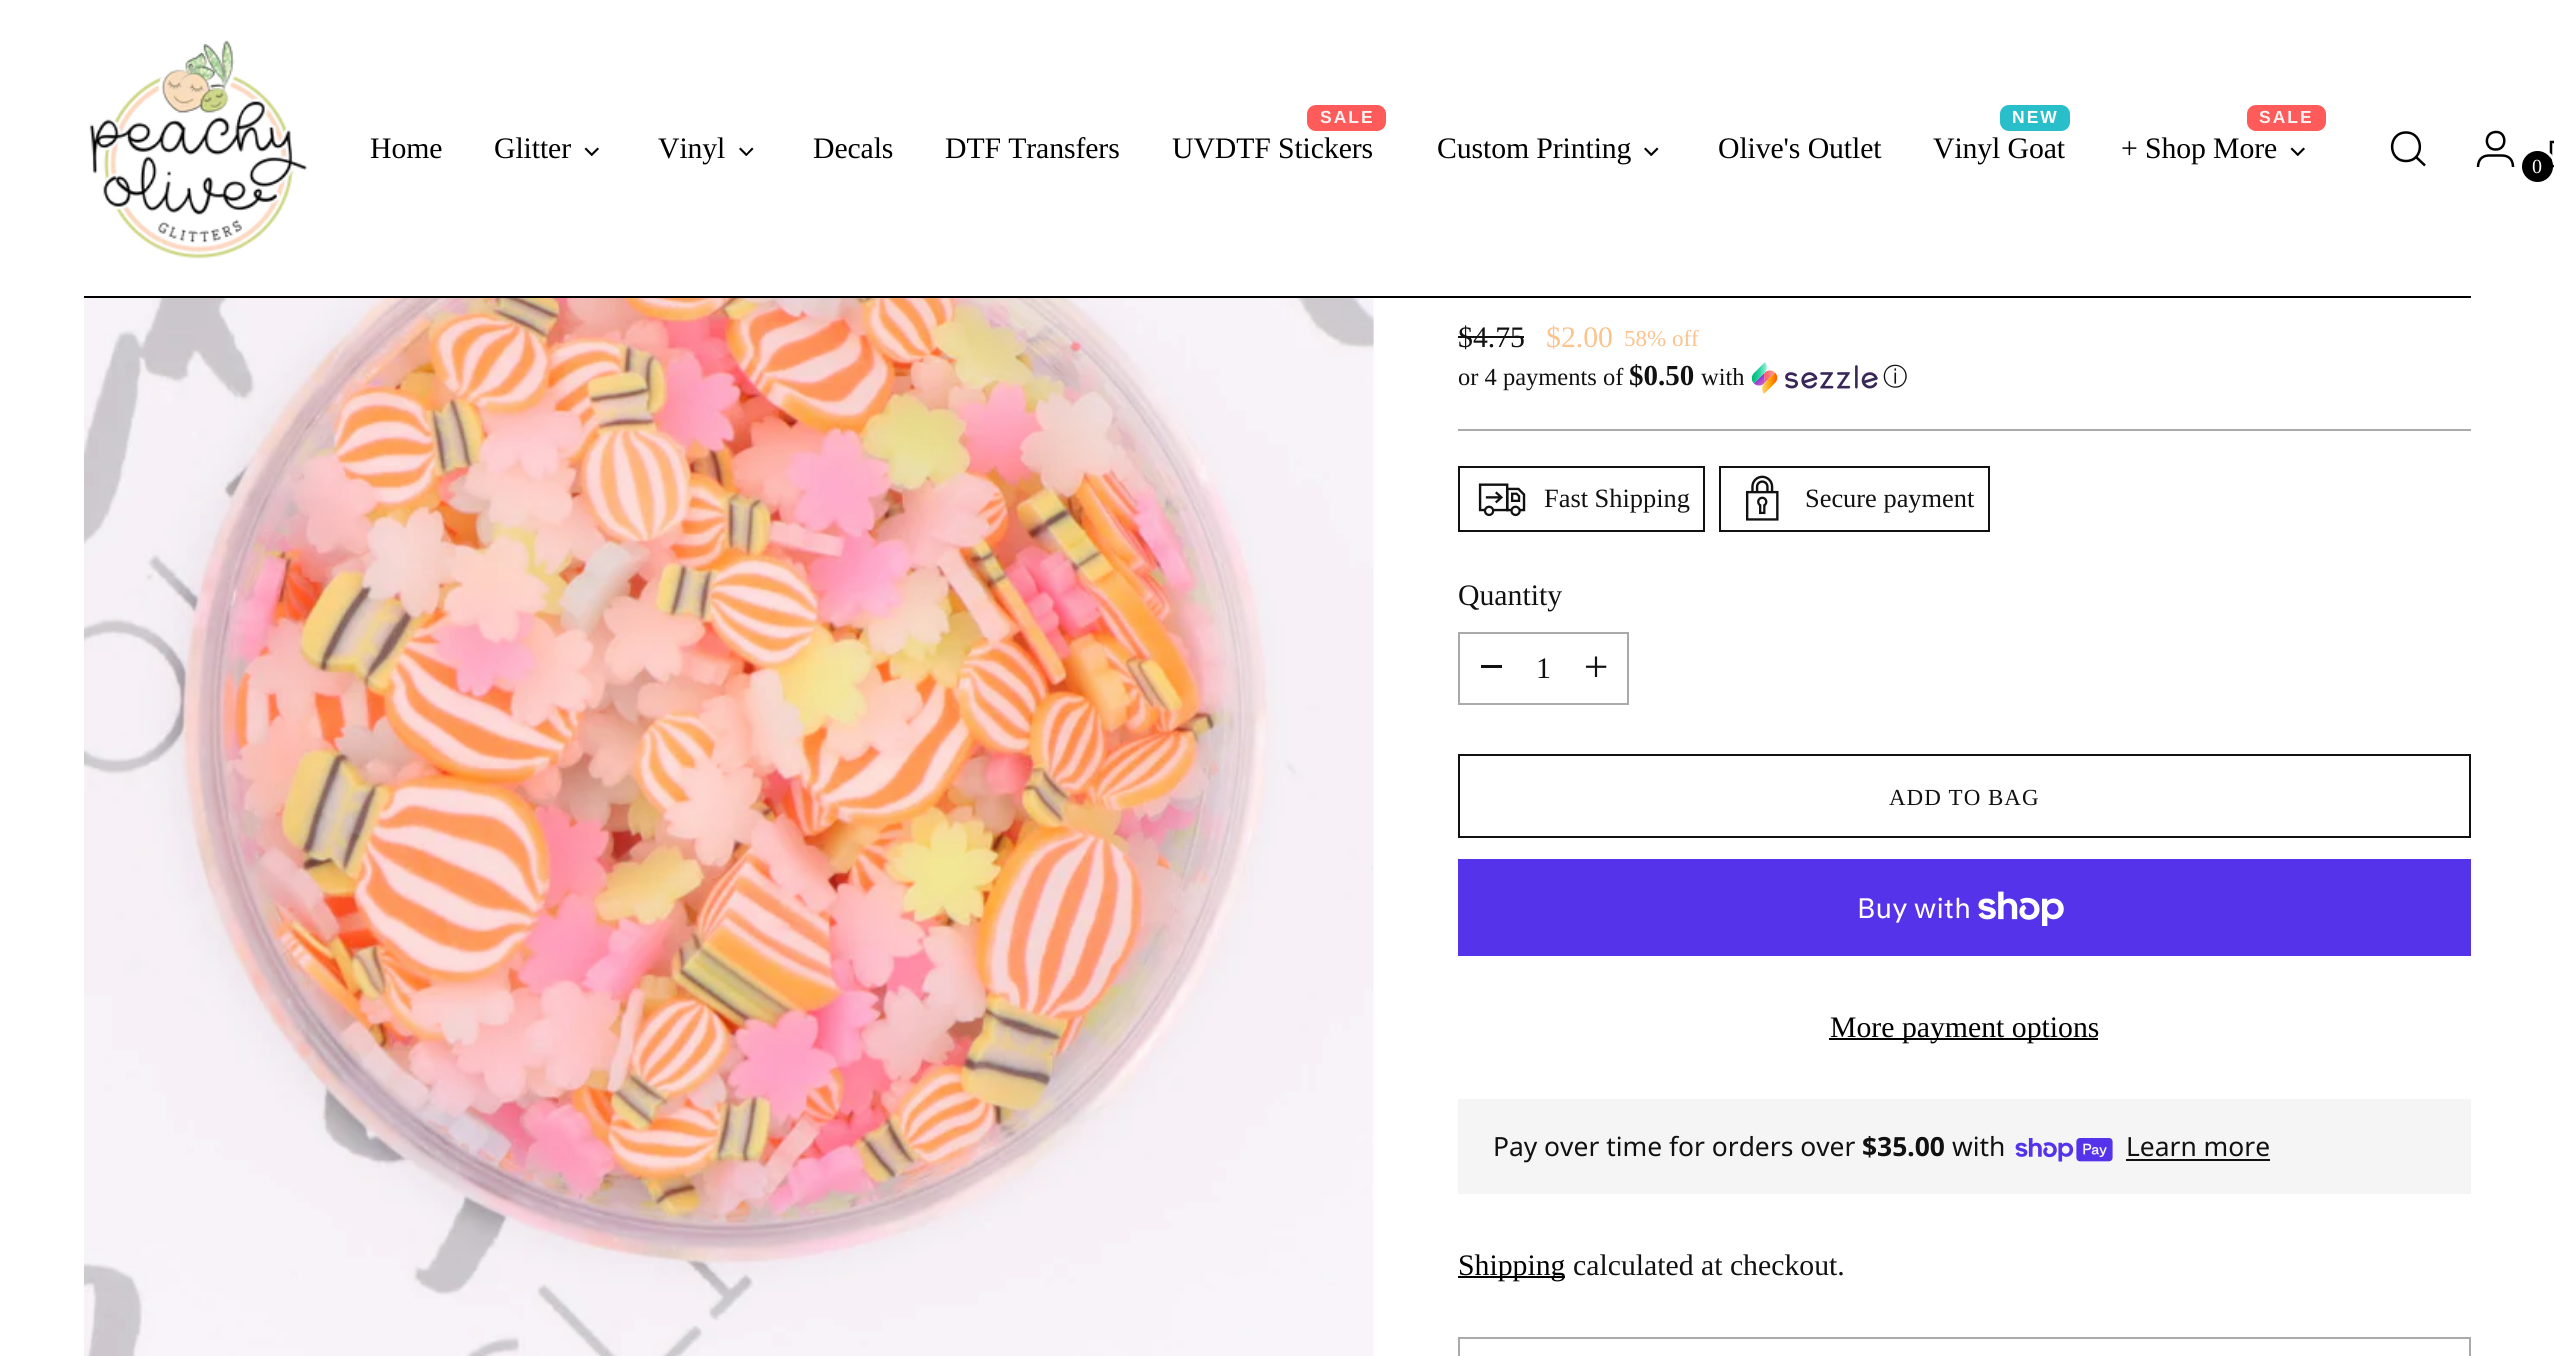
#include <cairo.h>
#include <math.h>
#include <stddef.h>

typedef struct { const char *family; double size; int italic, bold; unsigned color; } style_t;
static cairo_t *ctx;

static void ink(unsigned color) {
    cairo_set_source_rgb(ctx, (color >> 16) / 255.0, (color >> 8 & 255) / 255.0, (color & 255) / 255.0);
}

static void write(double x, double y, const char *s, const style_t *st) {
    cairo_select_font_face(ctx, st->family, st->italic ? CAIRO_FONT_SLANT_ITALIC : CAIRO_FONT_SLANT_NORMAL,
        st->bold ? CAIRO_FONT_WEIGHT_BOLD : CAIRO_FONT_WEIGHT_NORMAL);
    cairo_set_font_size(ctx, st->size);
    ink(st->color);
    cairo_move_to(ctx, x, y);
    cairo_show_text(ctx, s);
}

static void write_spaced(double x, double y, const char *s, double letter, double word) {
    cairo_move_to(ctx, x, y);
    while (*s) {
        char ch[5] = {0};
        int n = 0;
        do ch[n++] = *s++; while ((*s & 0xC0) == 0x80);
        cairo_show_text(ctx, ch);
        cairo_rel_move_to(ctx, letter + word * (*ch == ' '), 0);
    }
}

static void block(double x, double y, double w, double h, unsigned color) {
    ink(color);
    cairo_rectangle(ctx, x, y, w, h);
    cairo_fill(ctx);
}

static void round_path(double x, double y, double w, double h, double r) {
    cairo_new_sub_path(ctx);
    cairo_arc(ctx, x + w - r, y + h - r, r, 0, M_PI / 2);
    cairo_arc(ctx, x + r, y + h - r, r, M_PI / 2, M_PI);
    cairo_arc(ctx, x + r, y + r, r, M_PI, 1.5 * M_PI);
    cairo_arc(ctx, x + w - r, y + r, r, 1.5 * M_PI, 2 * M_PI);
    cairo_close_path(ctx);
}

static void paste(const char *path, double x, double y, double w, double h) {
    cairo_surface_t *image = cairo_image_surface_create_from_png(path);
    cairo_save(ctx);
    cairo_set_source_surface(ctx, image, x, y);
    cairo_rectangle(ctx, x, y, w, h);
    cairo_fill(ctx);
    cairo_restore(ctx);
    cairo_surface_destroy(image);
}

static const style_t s1 = {"Liberation Serif", 20, 0, 0, 0xffffff};
static const style_t s2 = {"Liberation Serif", 29.75, 0, 0, 0x111111};
static const style_t s3 = {"Liberation Serif", 29.75, 0, 0, 0xfcc38d};
static const style_t s4 = {"Liberation Serif", 23, 0, 0, 0xfcc38d};
static const style_t s5 = {"Liberation Serif", 24.5, 0, 0, 0x111111};
static const style_t s6 = {"Liberation Serif", 29, 0, 1, 0x111111};
static const style_t s7 = {"WenQuanYi Zen Hei Medium", 24.5, 0, 0, 0x111111};
static const style_t s8 = {"Liberation Serif", 26.4, 0, 0, 0x111111};
static const style_t s9 = {"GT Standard", 28, 0, 0, 0xffffff};
static const style_t s10 = {"Liberation Serif", 29.75, 0, 0, 0x000000};
static const style_t s11 = {"Noto Sans", 26.4, 0, 0, 0x111111};
static const style_t s12 = {"Noto Sans", 26.4, 0, 1, 0x111111};

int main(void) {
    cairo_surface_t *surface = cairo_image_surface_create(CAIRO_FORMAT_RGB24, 2554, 1356);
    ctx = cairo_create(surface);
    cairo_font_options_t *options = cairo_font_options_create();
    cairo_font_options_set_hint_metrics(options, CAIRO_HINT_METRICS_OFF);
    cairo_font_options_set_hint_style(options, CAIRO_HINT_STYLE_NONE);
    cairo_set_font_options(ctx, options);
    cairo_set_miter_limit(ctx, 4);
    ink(0xffffff);
    cairo_paint(ctx);
    block(84, 296, 2387, 2, 0x000000);
    paste("pic1.png", 89, 40, 219, 219);
    cairo_select_font_face(ctx, "Liberation Serif", CAIRO_FONT_SLANT_NORMAL, CAIRO_FONT_WEIGHT_NORMAL);
    cairo_set_font_size(ctx, 29.75);
    write_spaced(370, 158, "Home", -0.1, 0);
    write_spaced(494, 158, "Glitter", -0.1, 0);
    cairo_new_path(ctx);
    cairo_move_to(ctx, 597.5, 147.5);
    cairo_line_to(ctx, 599, 149);
    cairo_line_to(ctx, 592, 156);
    cairo_line_to(ctx, 590.5, 154.5);
    cairo_close_path(ctx);
    cairo_fill(ctx);
    cairo_new_path(ctx);
    cairo_move_to(ctx, 586, 147.5);
    cairo_line_to(ctx, 593, 154.5);
    cairo_line_to(ctx, 591.5, 156);
    cairo_line_to(ctx, 584.5, 149);
    cairo_close_path(ctx);
    cairo_fill(ctx);
    write_spaced(658, 158, "Vinyl", -0.1, 0);
    cairo_new_path(ctx);
    cairo_move_to(ctx, 752, 147.5);
    cairo_line_to(ctx, 753.5, 149);
    cairo_line_to(ctx, 746.5, 156);
    cairo_line_to(ctx, 745.5, 154.5);
    cairo_close_path(ctx);
    cairo_fill(ctx);
    cairo_new_path(ctx);
    cairo_move_to(ctx, 740.5, 147.5);
    cairo_line_to(ctx, 747.5, 154.5);
    cairo_line_to(ctx, 746, 156);
    cairo_line_to(ctx, 739, 149);
    cairo_close_path(ctx);
    cairo_fill(ctx);
    write_spaced(813, 158, "Decals", -0.1, 0);
    write_spaced(945, 158, "DTF Transfers", -0.1, 0);
    ink(0xff5b5b);
    round_path(1307, 105, 79, 26, 9);
    cairo_fill(ctx);
    cairo_select_font_face(ctx, "Liberation Sans", CAIRO_FONT_SLANT_NORMAL, CAIRO_FONT_WEIGHT_BOLD);
    cairo_set_font_size(ctx, 17.5);
    ink(0xfaf2f2);
    write_spaced(1320, 123, "SALE", 2, 0);
    cairo_select_font_face(ctx, "Liberation Serif", CAIRO_FONT_SLANT_NORMAL, CAIRO_FONT_WEIGHT_NORMAL);
    cairo_set_font_size(ctx, 29.75);
    ink(0x000000);
    write_spaced(1172, 158, "UVDTF Stickers", -0.1, 0);
    write_spaced(1437, 158, "Custom Printing", -0.1, 0);
    cairo_new_path(ctx);
    cairo_move_to(ctx, 1657, 147.5);
    cairo_line_to(ctx, 1658.5, 149);
    cairo_line_to(ctx, 1651.5, 156);
    cairo_line_to(ctx, 1650, 154.5);
    cairo_close_path(ctx);
    cairo_fill(ctx);
    cairo_new_path(ctx);
    cairo_move_to(ctx, 1645.5, 147.5);
    cairo_line_to(ctx, 1652.5, 154.5);
    cairo_line_to(ctx, 1651, 156);
    cairo_line_to(ctx, 1644, 149);
    cairo_close_path(ctx);
    cairo_fill(ctx);
    write_spaced(1718, 158, "Olive's Outlet", -0.1, 0);
    ink(0x28beca);
    round_path(2000, 105, 70, 26, 9);
    cairo_fill(ctx);
    cairo_select_font_face(ctx, "Liberation Sans", CAIRO_FONT_SLANT_NORMAL, CAIRO_FONT_WEIGHT_BOLD);
    cairo_set_font_size(ctx, 17.5);
    ink(0xffffff);
    write_spaced(2012, 123, "NEW", 2, 0);
    cairo_select_font_face(ctx, "Liberation Serif", CAIRO_FONT_SLANT_NORMAL, CAIRO_FONT_WEIGHT_NORMAL);
    cairo_set_font_size(ctx, 29.75);
    ink(0x000000);
    write_spaced(1933, 158, "Vinyl Goat", -0.1, 0);
    ink(0xff5b5b);
    round_path(2247, 105, 79, 26, 9);
    cairo_fill(ctx);
    cairo_select_font_face(ctx, "Liberation Sans", CAIRO_FONT_SLANT_NORMAL, CAIRO_FONT_WEIGHT_BOLD);
    cairo_set_font_size(ctx, 17.5);
    ink(0xfaf2f2);
    write_spaced(2259, 123, "SALE", 2, 0);
    cairo_select_font_face(ctx, "Liberation Serif", CAIRO_FONT_SLANT_NORMAL, CAIRO_FONT_WEIGHT_NORMAL);
    cairo_set_font_size(ctx, 29.75);
    ink(0x000000);
    write_spaced(2121, 158, "+ Shop More", -0.1, 0);
    cairo_new_path(ctx);
    cairo_move_to(ctx, 2303.5, 147.5);
    cairo_line_to(ctx, 2305, 149);
    cairo_line_to(ctx, 2298, 156);
    cairo_line_to(ctx, 2296.5, 154.5);
    cairo_close_path(ctx);
    cairo_fill(ctx);
    cairo_new_path(ctx);
    cairo_move_to(ctx, 2292, 147.5);
    cairo_line_to(ctx, 2299, 154.5);
    cairo_line_to(ctx, 2297.5, 156);
    cairo_line_to(ctx, 2290.5, 149);
    cairo_close_path(ctx);
    cairo_fill(ctx);
    cairo_new_path(ctx);
    cairo_move_to(ctx, 2406, 161);
    cairo_curve_to(ctx, 2424.5, 161, 2424.5, 132.5, 2406, 132.5);
    cairo_curve_to(ctx, 2387.5, 132.5, 2387.5, 161, 2406, 161);
    cairo_close_path(ctx);
    cairo_set_line_width(ctx, 2.5);
    cairo_set_line_cap(ctx, CAIRO_LINE_CAP_ROUND);
    cairo_stroke(ctx);
    cairo_new_path(ctx);
    cairo_move_to(ctx, 2416, 157);
    cairo_line_to(ctx, 2425, 165.5);
    cairo_set_line_cap(ctx, CAIRO_LINE_CAP_BUTT);
    cairo_stroke(ctx);
    cairo_new_path(ctx);
    cairo_move_to(ctx, 2495.5, 149.5);
    cairo_curve_to(ctx, 2507.5, 150, 2507, 131, 2495.5, 132);
    cairo_curve_to(ctx, 2484, 132.5, 2484, 149.5, 2495.5, 149.5);
    cairo_close_path(ctx);
    cairo_move_to(ctx, 2478, 167);
    cairo_curve_to(ctx, 2478, 160.5, 2481.5, 155.5, 2489, 155.5);
    cairo_line_to(ctx, 2502, 155.5);
    cairo_curve_to(ctx, 2509.5, 155.5, 2513, 160.5, 2513, 167);
    cairo_stroke(ctx);
    cairo_new_path(ctx);
    cairo_move_to(ctx, 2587, 166);
    cairo_line_to(ctx, 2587, 142);
    cairo_line_to(ctx, 2551, 142);
    cairo_line_to(ctx, 2551, 166);
    cairo_close_path(ctx);
    cairo_stroke(ctx);
    cairo_arc(ctx, 2538.5, 167.5, 17, 0, 2 * M_PI);
    ink(0xffffff);
    cairo_set_line_width(ctx, 3);
    cairo_stroke(ctx);
    ink(0x000000);
    cairo_arc(ctx, 2537.5, 166.5, 15.5, 0, 2 * M_PI);
    cairo_fill(ctx);
    write(2532, 173, "0", &s1);
    paste("pic2.png", 84, 298, 1290, 1058);
    block(1458, 429, 1013, 2, 0xaaaaaa);
    write(1458, 347, "$4.75", &s2);
    block(1458, 336, 66, 2, 0x111111);
    write(1546, 347, "$2.00", &s3);
    write(1624, 346, "58% off", &s4);
    write(1458, 385, "or 4 payments of", &s5);
    write(1629, 385, "$0.50", &s6);
    write(1701, 385, "with", &s5);
    paste("pic3.png", 1752, 362, 126, 32);
    write(1883, 385, "ⓘ", &s7);
    cairo_rectangle(ctx, 1459, 467, 245, 64);
    cairo_set_line_width(ctx, 2);
    cairo_stroke(ctx);
    paste("pic4.png", 1478, 483, 48, 34);
    write(1544, 507, "Fast Shipping", &s8);
    cairo_rectangle(ctx, 1720, 467, 269, 64);
    cairo_stroke(ctx);
    paste("pic5.png", 1745, 475, 34, 46);
    write(1805, 507, "Secure payment", &s8);
    write(1458, 605, "Quantity", &s2);
    cairo_rectangle(ctx, 1459, 633, 169, 71);
    ink(0xaaaaaa);
    cairo_stroke(ctx);
    block(1481, 665, 21, 3, 0x111111);
    write(1536, 678, "1", &s2);
    paste("pic6.png", 1586, 656, 21, 21);
    cairo_rectangle(ctx, 1459, 755, 1011, 82);
    cairo_stroke(ctx);
    cairo_set_font_size(ctx, 23);
    write_spaced(1889, 805, "ADD TO BAG", 1, 0);
    block(1458, 859, 1013, 97, 0x5433eb);
    write(1857, 918, "Buy with", &s9);
    paste("pic7.png", 1978, 891, 86, 35);
    block(1829, 1038, 269, 2, 0x000000);
    write(1830, 1037, "More payment options", &s10);
    block(1458, 1099, 1013, 95, 0xf5f5f5);
    write(1493, 1156, "Pay over time for orders over", &s11);
    write(1862, 1156, "$35.00", &s12);
    write(1952, 1156, "with", &s11);
    paste("pic8.png", 2015, 1138, 98, 24);
    write(2126, 1156, "Learn more", &s11);
    block(2126, 1159, 144, 2, 0x111111);
    block(1458, 1276, 107, 2, 0x000000);
    write(1458, 1275, "Shipping", &s10);
    write(1573, 1275, "calculated at checkout.", &s2);
    cairo_rectangle(ctx, 1459, 1338, 1011, 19);
    ink(0xaaaaaa);
    cairo_stroke(ctx);
    cairo_surface_write_to_png(surface, "screenshot.png");
    cairo_font_options_destroy(options);
    cairo_destroy(ctx);
    cairo_surface_destroy(surface);
    return 0;
}
